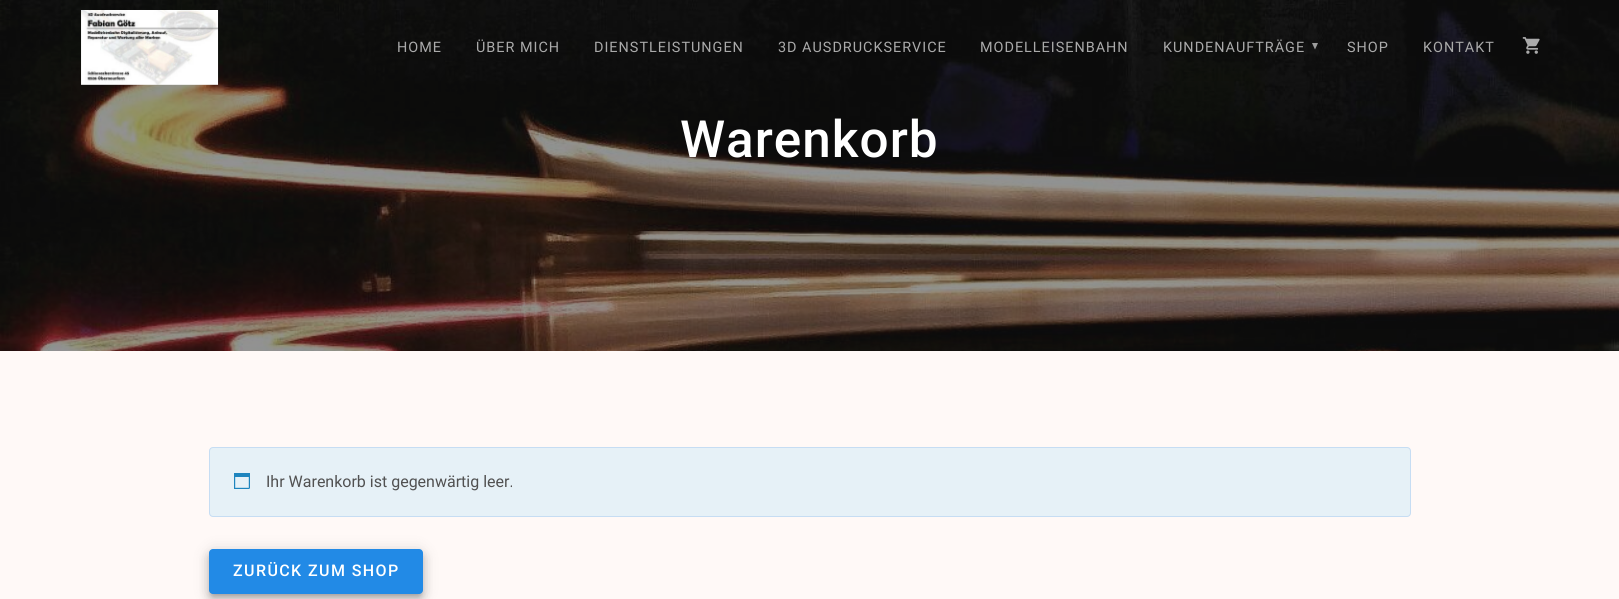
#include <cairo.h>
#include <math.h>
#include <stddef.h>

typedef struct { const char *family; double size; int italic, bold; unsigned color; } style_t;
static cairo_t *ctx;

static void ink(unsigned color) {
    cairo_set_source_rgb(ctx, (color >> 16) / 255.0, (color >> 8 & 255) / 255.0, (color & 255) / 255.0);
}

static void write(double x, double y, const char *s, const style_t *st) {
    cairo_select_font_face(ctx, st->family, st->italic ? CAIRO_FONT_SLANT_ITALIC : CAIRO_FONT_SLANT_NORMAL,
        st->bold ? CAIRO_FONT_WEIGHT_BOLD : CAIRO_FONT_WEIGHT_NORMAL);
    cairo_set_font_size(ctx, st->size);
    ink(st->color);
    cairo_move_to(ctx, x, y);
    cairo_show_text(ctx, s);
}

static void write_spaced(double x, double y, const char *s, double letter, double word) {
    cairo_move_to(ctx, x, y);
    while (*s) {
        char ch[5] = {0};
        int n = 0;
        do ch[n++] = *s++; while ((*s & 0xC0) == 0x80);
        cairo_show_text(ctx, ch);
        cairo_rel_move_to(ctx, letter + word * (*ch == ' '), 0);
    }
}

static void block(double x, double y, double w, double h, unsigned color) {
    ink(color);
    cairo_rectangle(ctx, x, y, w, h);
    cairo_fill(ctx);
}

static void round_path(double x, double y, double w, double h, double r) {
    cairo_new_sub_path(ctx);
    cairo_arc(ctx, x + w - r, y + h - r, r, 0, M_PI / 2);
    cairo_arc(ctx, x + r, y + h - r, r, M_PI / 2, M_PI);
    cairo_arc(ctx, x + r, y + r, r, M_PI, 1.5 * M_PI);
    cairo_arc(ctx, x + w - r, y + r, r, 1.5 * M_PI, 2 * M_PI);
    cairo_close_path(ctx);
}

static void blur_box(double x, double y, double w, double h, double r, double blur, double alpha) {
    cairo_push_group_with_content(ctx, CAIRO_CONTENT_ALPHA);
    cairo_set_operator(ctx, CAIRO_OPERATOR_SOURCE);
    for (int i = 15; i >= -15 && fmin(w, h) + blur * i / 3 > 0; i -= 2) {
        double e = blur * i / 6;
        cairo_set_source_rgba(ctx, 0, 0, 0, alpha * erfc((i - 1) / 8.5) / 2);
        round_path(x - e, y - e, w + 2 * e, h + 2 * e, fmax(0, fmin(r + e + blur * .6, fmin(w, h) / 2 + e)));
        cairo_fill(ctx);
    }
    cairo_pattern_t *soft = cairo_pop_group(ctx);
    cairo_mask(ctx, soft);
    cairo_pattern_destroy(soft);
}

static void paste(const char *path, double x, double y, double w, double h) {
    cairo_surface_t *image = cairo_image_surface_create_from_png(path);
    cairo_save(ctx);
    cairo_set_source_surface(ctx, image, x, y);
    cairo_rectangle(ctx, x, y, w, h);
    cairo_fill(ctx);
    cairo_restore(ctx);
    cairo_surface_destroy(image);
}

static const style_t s1 = {"Roboto", 16, 0, 0, 0x515151};

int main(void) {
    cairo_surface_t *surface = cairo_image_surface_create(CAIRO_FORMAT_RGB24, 1619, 599);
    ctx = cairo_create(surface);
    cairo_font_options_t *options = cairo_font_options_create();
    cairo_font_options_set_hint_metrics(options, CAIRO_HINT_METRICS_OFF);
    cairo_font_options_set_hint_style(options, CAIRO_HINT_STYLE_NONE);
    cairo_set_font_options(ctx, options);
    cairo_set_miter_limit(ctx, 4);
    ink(0xffffff);
    cairo_paint(ctx);
    paste("pic3.png", 0, 0, 1619, 351);
    paste("pic1.png", 81, 10, 138, 75);
    cairo_select_font_face(ctx, "Roboto", CAIRO_FONT_SLANT_NORMAL, CAIRO_FONT_WEIGHT_NORMAL);
    cairo_set_font_size(ctx, 14.4);
    ink(0xaaaaaa);
    write_spaced(397, 52, "HOME", 1, 0);
    write_spaced(476, 52, "ÜBER MICH", 1, 0);
    write_spaced(594, 52, "DIENSTLEISTUNGEN", 1, 0);
    write_spaced(778, 52, "3D AUSDRUCKSERVICE", 1, 0);
    write_spaced(980, 52, "MODELLEISENBAHN", 1, 0);
    write_spaced(1163, 52, "KUNDENAUFTRÄGE", 1, 0);
    ink(0x9d9d9d);
    cairo_new_path(ctx);
    cairo_move_to(ctx, 1312, 43);
    cairo_line_to(ctx, 1315, 49.5);
    cairo_line_to(ctx, 1318, 43);
    cairo_close_path(ctx);
    cairo_fill(ctx);
    ink(0xaaaaaa);
    write_spaced(1347, 52, "SHOP", 1, 0);
    write_spaced(1423, 52, "KONTAKT", 1, 0);
    paste("pic2.png", 1522, 37, 18, 17);
    cairo_select_font_face(ctx, "Roboto Medium", CAIRO_FONT_SLANT_NORMAL, CAIRO_FONT_WEIGHT_NORMAL);
    cairo_set_font_size(ctx, 51.25);
    ink(0xffffff);
    write_spaced(680, 157, "Warenkorb", 1, 0);
    block(0, 351, 1619, 248, 0xfff9f7);
    ink(0xe6f1f7);
    round_path(209, 447, 1202, 70, 4);
    cairo_fill(ctx);
    round_path(209.5, 447.5, 1201, 69, 3.5);
    cairo_set_source_rgba(ctx, 0.29, 0.565, 0.886, 0.2);
    cairo_set_line_width(ctx, 1);
    cairo_stroke(ctx);
    paste("pic4.png", 234, 473, 16, 16);
    write(266, 487, "Ihr Warenkorb ist gegenwärtig leer.", &s1);
    ink(0x000000);
    blur_box(208, 550, 216, 47, 5, 8, 0.12);
    blur_box(208, 555, 216, 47, 5, 5, 0.14);
    blur_box(211, 555, 210, 41, 2, 2.5, 0.2);
    ink(0x228ae6);
    round_path(209, 549, 214, 45, 4);
    cairo_fill(ctx);
    cairo_select_font_face(ctx, "Roboto Medium", CAIRO_FONT_SLANT_NORMAL, CAIRO_FONT_WEIGHT_NORMAL);
    ink(0xffffff);
    write_spaced(233, 576, "ZURÜCK ZUM SHOP", 1.4, 0);
    cairo_surface_write_to_png(surface, "screenshot.png");
    cairo_font_options_destroy(options);
    cairo_destroy(ctx);
    cairo_surface_destroy(surface);
    return 0;
}
